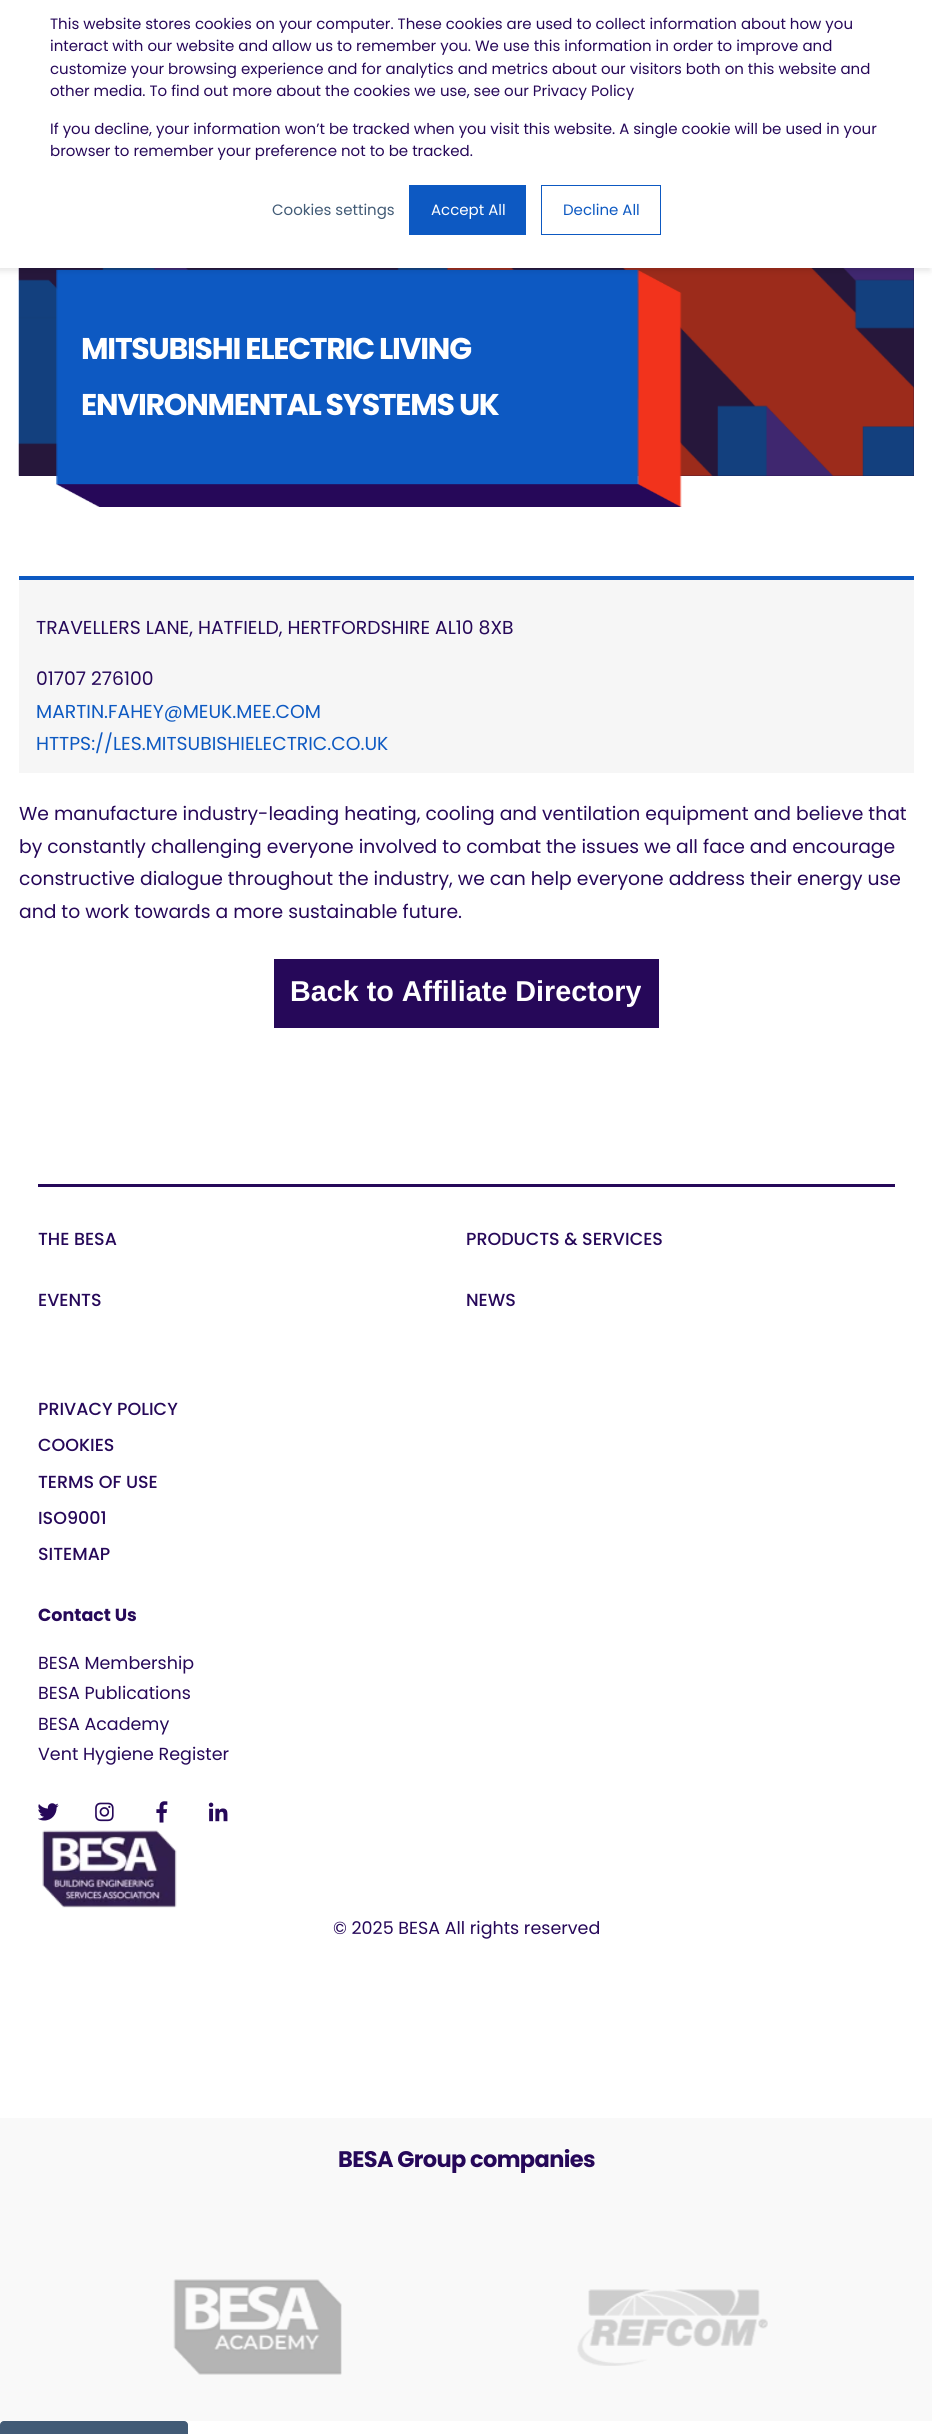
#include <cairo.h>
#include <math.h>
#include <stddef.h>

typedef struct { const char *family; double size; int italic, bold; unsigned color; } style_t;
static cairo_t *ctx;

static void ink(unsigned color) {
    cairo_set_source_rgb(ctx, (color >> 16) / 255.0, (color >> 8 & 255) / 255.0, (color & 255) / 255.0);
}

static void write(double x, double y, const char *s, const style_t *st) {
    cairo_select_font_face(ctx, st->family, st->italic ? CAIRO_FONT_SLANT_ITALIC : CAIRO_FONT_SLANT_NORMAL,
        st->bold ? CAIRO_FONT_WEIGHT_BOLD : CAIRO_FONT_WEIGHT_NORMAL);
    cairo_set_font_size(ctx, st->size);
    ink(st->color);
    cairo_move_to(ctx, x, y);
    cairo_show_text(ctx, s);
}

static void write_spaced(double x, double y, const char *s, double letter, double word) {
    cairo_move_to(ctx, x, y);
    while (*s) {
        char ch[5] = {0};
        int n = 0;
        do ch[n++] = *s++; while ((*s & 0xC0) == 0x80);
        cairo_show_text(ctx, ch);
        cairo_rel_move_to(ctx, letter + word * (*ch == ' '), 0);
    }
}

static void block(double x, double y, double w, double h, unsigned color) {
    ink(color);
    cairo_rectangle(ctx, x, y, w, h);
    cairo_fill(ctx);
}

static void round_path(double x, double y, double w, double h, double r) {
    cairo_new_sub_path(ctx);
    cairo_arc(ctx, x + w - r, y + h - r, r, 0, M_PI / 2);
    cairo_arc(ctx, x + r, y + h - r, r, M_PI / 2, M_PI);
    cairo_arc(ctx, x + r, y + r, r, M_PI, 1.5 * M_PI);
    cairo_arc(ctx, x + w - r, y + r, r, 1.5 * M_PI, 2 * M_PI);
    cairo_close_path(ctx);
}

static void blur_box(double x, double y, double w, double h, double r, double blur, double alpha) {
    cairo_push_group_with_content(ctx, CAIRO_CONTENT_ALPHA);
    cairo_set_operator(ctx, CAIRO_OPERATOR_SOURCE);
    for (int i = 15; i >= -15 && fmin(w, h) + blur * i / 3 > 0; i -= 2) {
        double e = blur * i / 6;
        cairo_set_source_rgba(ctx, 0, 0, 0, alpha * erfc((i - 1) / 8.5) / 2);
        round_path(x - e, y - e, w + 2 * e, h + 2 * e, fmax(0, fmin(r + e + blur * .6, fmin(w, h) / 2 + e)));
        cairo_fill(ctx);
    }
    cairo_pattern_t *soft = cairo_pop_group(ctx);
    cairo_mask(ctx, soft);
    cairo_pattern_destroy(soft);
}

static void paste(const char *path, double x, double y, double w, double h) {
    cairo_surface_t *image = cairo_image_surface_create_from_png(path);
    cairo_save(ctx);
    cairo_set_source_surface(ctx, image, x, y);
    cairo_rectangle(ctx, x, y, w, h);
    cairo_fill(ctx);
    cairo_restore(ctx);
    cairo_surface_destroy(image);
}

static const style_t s1 = {"Poppins", 15, 0, 0, 0x260859};
static const style_t s2 = {"Poppins", 15, 0, 0, 0x425b76};
static const style_t s3 = {"Poppins", 15, 0, 0, 0xffffff};
static const style_t s4 = {"Poppins", 15, 0, 0, 0x0d59c2};
static const style_t s5 = {"Poppins", 18.75, 0, 0, 0x260859};
static const style_t s6 = {"Poppins", 18.75, 0, 0, 0x0d59c2};
static const style_t s7 = {"Liberation Sans", 28.75, 0, 1, 0xffffff};
static const style_t s8 = {"Poppins Medium", 17.5, 0, 0, 0x260859};
static const style_t s9 = {"Poppins", 17.5, 0, 1, 0x260859};
static const style_t s10 = {"Poppins", 17.5, 0, 0, 0x260859};

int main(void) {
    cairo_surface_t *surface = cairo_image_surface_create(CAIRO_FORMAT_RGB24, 932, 2434);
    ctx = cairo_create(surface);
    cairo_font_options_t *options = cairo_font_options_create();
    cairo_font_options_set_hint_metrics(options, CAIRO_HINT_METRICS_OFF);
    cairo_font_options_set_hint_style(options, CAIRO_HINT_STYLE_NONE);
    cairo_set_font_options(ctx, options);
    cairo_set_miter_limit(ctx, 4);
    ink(0xffffff);
    cairo_paint(ctx);
    block(19, 268, 895, 208, 0x21103f);
    paste("pic1.png", 18, 268, 896, 208);
    paste("pic2.png", 56, 269, 626, 238);
    ink(0x000000);
    blur_box(-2, -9, 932, 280, 0, 3, 0.1);
    block(0, 0, 932, 268, 0xffffff);
    write(50, 29, "This website stores cookies on your computer. These cookies are used to collect information about how you", &s1);
    write(50, 51, "interact with our website and allow us to remember you. We use this information in order to improve and", &s1);
    write(50, 74, "customize your browsing experience and for analytics and metrics about our visitors both on this website and", &s1);
    write(50, 96, "other media. To find out more about the cookies we use, see our Privacy Policy", &s1);
    write(50, 134, "If you decline, your information won’t be tracked when you visit this website. A single cookie will be used in your", &s1);
    write(50, 156, "browser to remember your preference not to be tracked.", &s1);
    write(272, 215, "Cookies settings", &s2);
    block(409, 185, 117, 50, 0x0d59c2);
    write(431, 215, "Accept All", &s3);
    cairo_rectangle(ctx, 541.5, 185.5, 119, 49);
    ink(0x0d59c2);
    cairo_set_line_width(ctx, 1);
    cairo_stroke(ctx);
    write(563, 215, "Decline All", &s4);
    cairo_select_font_face(ctx, "Poppins", CAIRO_FONT_SLANT_NORMAL, CAIRO_FONT_WEIGHT_BOLD);
    cairo_set_font_size(ctx, 30);
    ink(0xffffff);
    write_spaced(81, 359, "MITSUBISHI ELECTRIC LIVING", -1.25, 0);
    write_spaced(81, 415, "ENVIRONMENTAL SYSTEMS UK", -1.25, 0);
    block(19, 580, 895, 193, 0xf6f6f6);
    block(19, 576, 895, 4, 0x0d59c2);
    write(36, 634, "TRAVELLERS LANE, HATFIELD, HERTFORDSHIRE AL10 8XB", &s5);
    write(36, 685, "01707 276100", &s5);
    write(36, 718, "MARTIN.FAHEY@MEUK.MEE.COM", &s6);
    write(36, 750, "HTTPS://LES.MITSUBISHIELECTRIC.CO.UK", &s6);
    write(19, 820, "We manufacture industry-leading heating, cooling and ventilation equipment and believe that", &s5);
    write(19, 853, "by constantly challenging everyone involved to combat the issues we all face and encourage", &s5);
    write(19, 885, "constructive dialogue throughout the industry, we can help everyone address their energy use", &s5);
    write(19, 918, "and to work towards a more sustainable future.", &s5);
    block(274, 959, 385, 69, 0x260859);
    write(290, 1001, "Back to Affiliate Directory", &s7);
    block(38, 1184, 857, 3, 0x260859);
    write(38, 1245, "THE BESA", &s8);
    write(466, 1245, "PRODUCTS & SERVICES", &s8);
    write(38, 1306, "EVENTS", &s8);
    write(466, 1306, "NEWS", &s8);
    write(38, 1415, "PRIVACY POLICY", &s8);
    write(38, 1451, "COOKIES", &s8);
    write(38, 1488, "TERMS OF USE", &s8);
    write(38, 1524, "ISO9001", &s8);
    write(38, 1560, "SITEMAP", &s8);
    write(38, 1621, "Contact Us", &s9);
    write(38, 1669, "BESA Membership", &s10);
    write(38, 1699, "BESA Publications", &s10);
    write(38, 1730, "BESA Academy", &s10);
    write(38, 1760, "Vent Hygiene Register", &s10);
    paste("pic3.png", 38, 1803, 21, 18);
    paste("pic4.png", 95, 1802, 19, 20);
    paste("pic5.png", 156, 1801, 12, 22);
    paste("pic6.png", 208, 1802, 20, 20);
    paste("pic7.png", 42, 1830, 135, 78);
    write(333, 1934, "© 2025 BESA All rights reserved", &s10);
    block(0, 2118, 932, 303, 0xf9f9f9);
    cairo_select_font_face(ctx, "Poppins", CAIRO_FONT_SLANT_NORMAL, CAIRO_FONT_WEIGHT_BOLD);
    cairo_set_font_size(ctx, 22.5);
    ink(0x260859);
    write_spaced(338, 2167, "BESA Group companies", -0.6, 0);
    paste("pic8.png", 173, 2279, 169, 96);
    paste("pic9.png", 577, 2289, 191, 77);
    ink(0x425b76);
    round_path(0.5, 2421.5, 187, 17, 3.5);
    cairo_fill_preserve(ctx);
    cairo_stroke(ctx);
    cairo_surface_write_to_png(surface, "screenshot.png");
    cairo_font_options_destroy(options);
    cairo_destroy(ctx);
    cairo_surface_destroy(surface);
    return 0;
}
